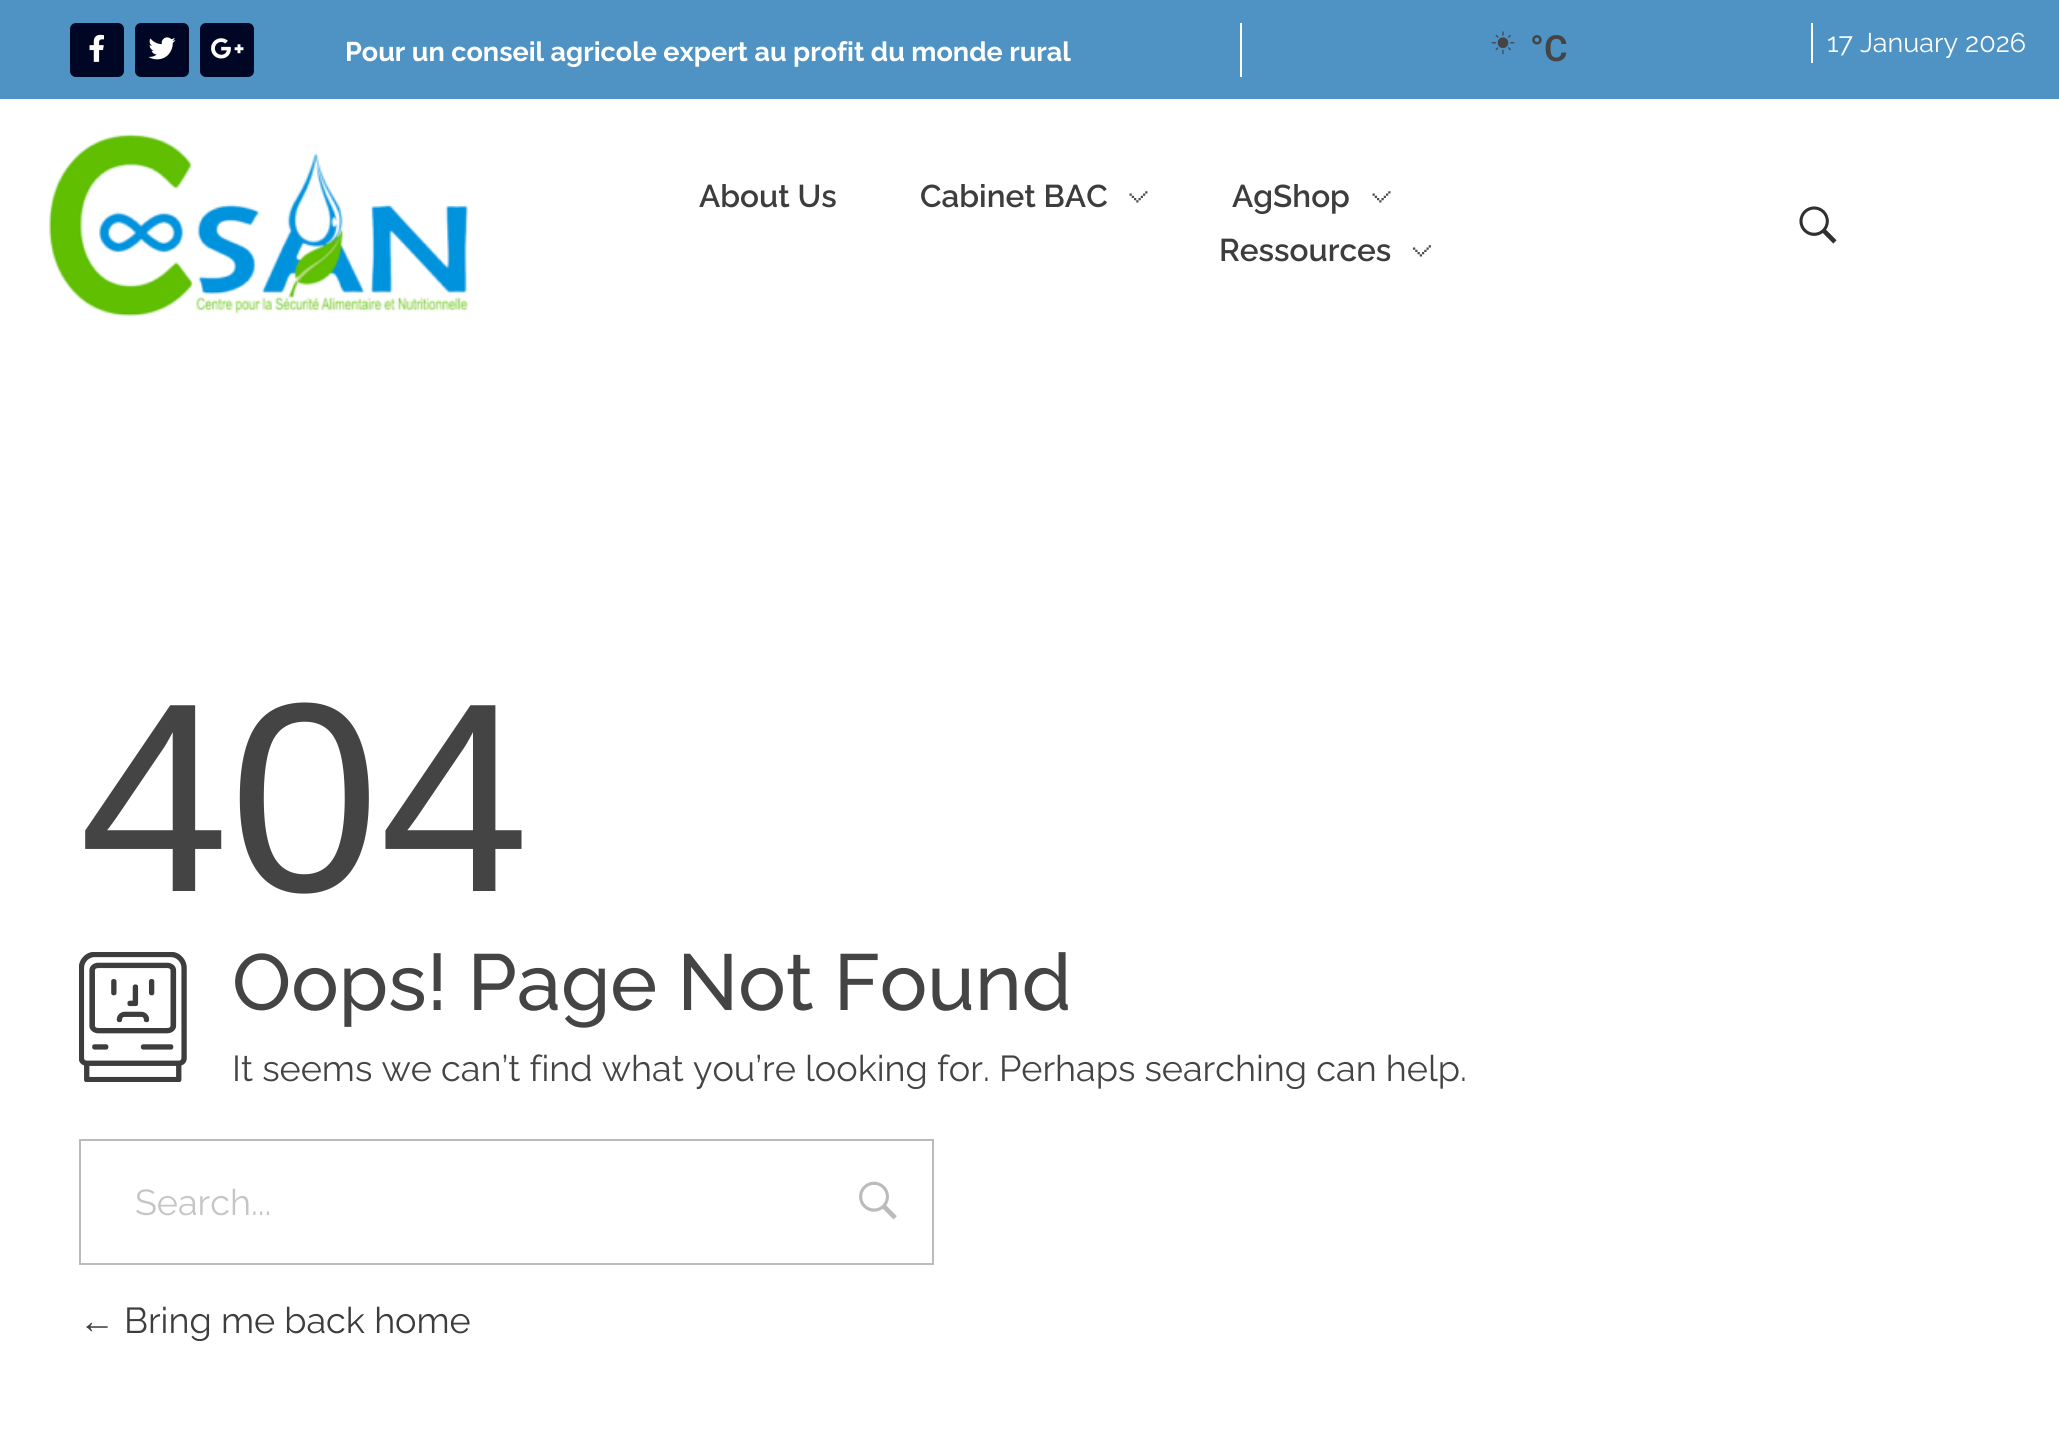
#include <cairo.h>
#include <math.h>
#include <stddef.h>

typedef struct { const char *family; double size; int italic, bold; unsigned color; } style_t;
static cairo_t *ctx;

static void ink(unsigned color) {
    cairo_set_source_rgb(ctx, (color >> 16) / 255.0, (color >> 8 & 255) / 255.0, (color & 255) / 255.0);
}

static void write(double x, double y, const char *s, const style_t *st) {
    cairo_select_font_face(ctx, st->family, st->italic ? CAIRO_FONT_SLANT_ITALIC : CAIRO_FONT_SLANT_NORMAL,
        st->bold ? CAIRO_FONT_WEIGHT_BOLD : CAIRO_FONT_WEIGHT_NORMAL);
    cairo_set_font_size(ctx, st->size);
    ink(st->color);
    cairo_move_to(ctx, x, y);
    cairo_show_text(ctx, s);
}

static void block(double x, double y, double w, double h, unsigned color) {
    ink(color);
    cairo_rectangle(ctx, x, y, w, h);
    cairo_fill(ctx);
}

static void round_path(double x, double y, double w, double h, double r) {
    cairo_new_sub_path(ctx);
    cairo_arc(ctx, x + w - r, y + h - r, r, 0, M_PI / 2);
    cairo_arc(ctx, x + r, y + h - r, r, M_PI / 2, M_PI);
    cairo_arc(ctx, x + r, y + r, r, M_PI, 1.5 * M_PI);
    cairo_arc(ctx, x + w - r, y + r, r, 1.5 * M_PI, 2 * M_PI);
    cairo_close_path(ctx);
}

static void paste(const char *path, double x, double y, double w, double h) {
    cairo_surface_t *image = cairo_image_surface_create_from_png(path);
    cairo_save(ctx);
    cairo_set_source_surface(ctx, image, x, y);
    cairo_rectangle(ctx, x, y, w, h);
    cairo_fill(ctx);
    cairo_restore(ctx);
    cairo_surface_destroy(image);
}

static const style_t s1 = {"Raleway", 27, 0, 1, 0xffffff};
static const style_t s2 = {"Roboto SemiBold", 36, 0, 0, 0x444444};
static const style_t s3 = {"Raleway", 27, 0, 0, 0xffffff};
static const style_t s4 = {"Raleway SemiBold", 31.5, 0, 0, 0x3d3d3d};
static const style_t s5 = {"Liberation Sans", 270, 0, 0, 0x444444};
static const style_t s6 = {"Raleway Medium", 79.25, 0, 0, 0x444444};
static const style_t s7 = {"Raleway", 36, 0, 0, 0x444444};
static const style_t s8 = {"Raleway", 36, 0, 0, 0xc5c5c5};
static const style_t s9 = {"Liberation Sans", 36, 0, 0, 0x3d3d3d};
static const style_t s10 = {"Raleway", 36, 0, 0, 0x3d3d3d};

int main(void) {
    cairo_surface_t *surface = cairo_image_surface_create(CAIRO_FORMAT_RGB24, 2059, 1435);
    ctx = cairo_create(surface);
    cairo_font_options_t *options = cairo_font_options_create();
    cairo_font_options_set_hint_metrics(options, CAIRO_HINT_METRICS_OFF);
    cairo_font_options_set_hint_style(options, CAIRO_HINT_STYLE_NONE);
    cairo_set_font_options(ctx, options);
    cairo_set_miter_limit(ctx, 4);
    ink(0xffffff);
    cairo_paint(ctx);
    block(0, 0, 2059, 99, 0x4e93c3);
    ink(0x000724);
    round_path(70, 23, 54, 54, 6);
    cairo_fill(ctx);
    paste("pic1.png", 89, 34, 15, 28);
    round_path(135, 23, 54, 54, 6);
    cairo_fill(ctx);
    paste("pic2.png", 148, 37, 28, 23);
    round_path(200, 23, 54, 54, 6);
    cairo_fill(ctx);
    paste("pic3.png", 211, 38, 33, 21);
    block(1240, 23, 2, 54, 0xffffff);
    write(345, 61, "Pour un conseil agricole expert au profit du monde rural", &s1);
    paste("pic4.png", 1491, 31, 24, 23);
    write(1530, 61, "°C", &s2);
    block(1811, 23, 2, 40, 0xffffff);
    write(1827, 52, "17 January 2026", &s3);
    paste("pic5.png", 48, 133, 420, 184);
    write(699, 207, "About Us", &s4);
    write(920, 207, "Cabinet BAC", &s4);
    paste("pic6.png", 1129, 191, 19, 12);
    write(1232, 207, "AgShop", &s4);
    paste("pic6.png", 1372, 191, 19, 12);
    write(1219, 261, "Ressources", &s4);
    paste("pic7.png", 1413, 245, 18, 12);
    paste("pic8.png", 1799, 206, 38, 38);
    write(79, 891, "404", &s5);
    paste("pic9.png", 79, 952, 108, 130);
    write(232, 1010, "Oops! Page Not Found", &s6);
    write(232, 1081, "It seems we can’t find what you’re looking for. Perhaps searching can help.", &s7);
    cairo_rectangle(ctx, 80, 1140, 853, 124);
    ink(0xbbbbbb);
    cairo_stroke(ctx);
    write(135, 1215, "Search...", &s8);
    paste("pic10.png", 859, 1181, 38, 39);
    write(79, 1333, "←", &s9);
    write(124, 1333, "Bring me back home", &s10);
    cairo_surface_write_to_png(surface, "screenshot.png");
    cairo_font_options_destroy(options);
    cairo_destroy(ctx);
    cairo_surface_destroy(surface);
    return 0;
}
